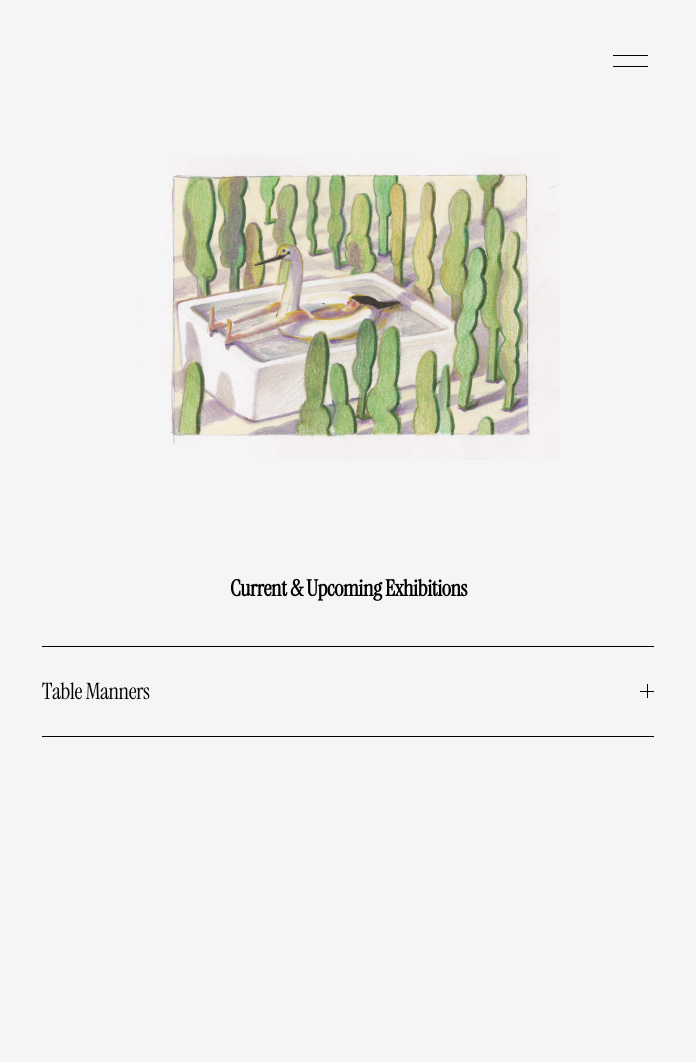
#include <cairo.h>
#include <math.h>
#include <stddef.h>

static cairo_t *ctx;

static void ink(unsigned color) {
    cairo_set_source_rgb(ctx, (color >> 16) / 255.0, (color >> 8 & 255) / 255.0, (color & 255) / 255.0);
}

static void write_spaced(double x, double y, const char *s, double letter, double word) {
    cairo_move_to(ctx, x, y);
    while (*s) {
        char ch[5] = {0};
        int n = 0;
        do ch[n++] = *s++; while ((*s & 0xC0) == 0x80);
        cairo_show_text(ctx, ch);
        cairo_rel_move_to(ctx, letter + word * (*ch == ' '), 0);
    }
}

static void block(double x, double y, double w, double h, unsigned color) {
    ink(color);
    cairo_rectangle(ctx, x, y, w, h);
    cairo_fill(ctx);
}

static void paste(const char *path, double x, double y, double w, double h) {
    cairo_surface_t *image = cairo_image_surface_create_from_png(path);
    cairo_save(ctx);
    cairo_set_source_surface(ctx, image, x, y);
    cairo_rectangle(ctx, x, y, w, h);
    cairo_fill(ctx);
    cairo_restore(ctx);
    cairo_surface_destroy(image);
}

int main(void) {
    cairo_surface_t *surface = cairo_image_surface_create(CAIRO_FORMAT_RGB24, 696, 1062);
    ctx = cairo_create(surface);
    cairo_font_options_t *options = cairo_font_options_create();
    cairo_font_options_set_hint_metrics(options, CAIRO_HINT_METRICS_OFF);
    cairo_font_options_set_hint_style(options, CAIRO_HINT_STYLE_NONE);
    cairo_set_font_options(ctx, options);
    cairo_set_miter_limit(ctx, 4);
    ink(0xf5f5f5);
    cairo_paint(ctx);
    block(613, 55, 35, 1, 0x000000);
    block(613, 66, 35, 1, 0x000000);
    paste("pic1.png", 137, 156, 423, 304);
    cairo_select_font_face(ctx, "Instrument Serif", CAIRO_FONT_SLANT_NORMAL, CAIRO_FONT_WEIGHT_BOLD);
    cairo_set_font_size(ctx, 22.5);
    write_spaced(230, 596, "Current & Upcoming Exhibitions", -0.45, 0);
    block(42, 646, 612, 1, 0x000000);
    cairo_select_font_face(ctx, "Instrument Serif", CAIRO_FONT_SLANT_NORMAL, CAIRO_FONT_WEIGHT_NORMAL);
    write_spaced(42, 699, "Table Manners", -0.45, 0);
    block(640, 691, 14, 1, 0x000000);
    block(647, 684, 1, 14, 0x000000);
    block(42, 736, 612, 1, 0x000000);
    cairo_surface_write_to_png(surface, "screenshot.png");
    cairo_font_options_destroy(options);
    cairo_destroy(ctx);
    cairo_surface_destroy(surface);
    return 0;
}
